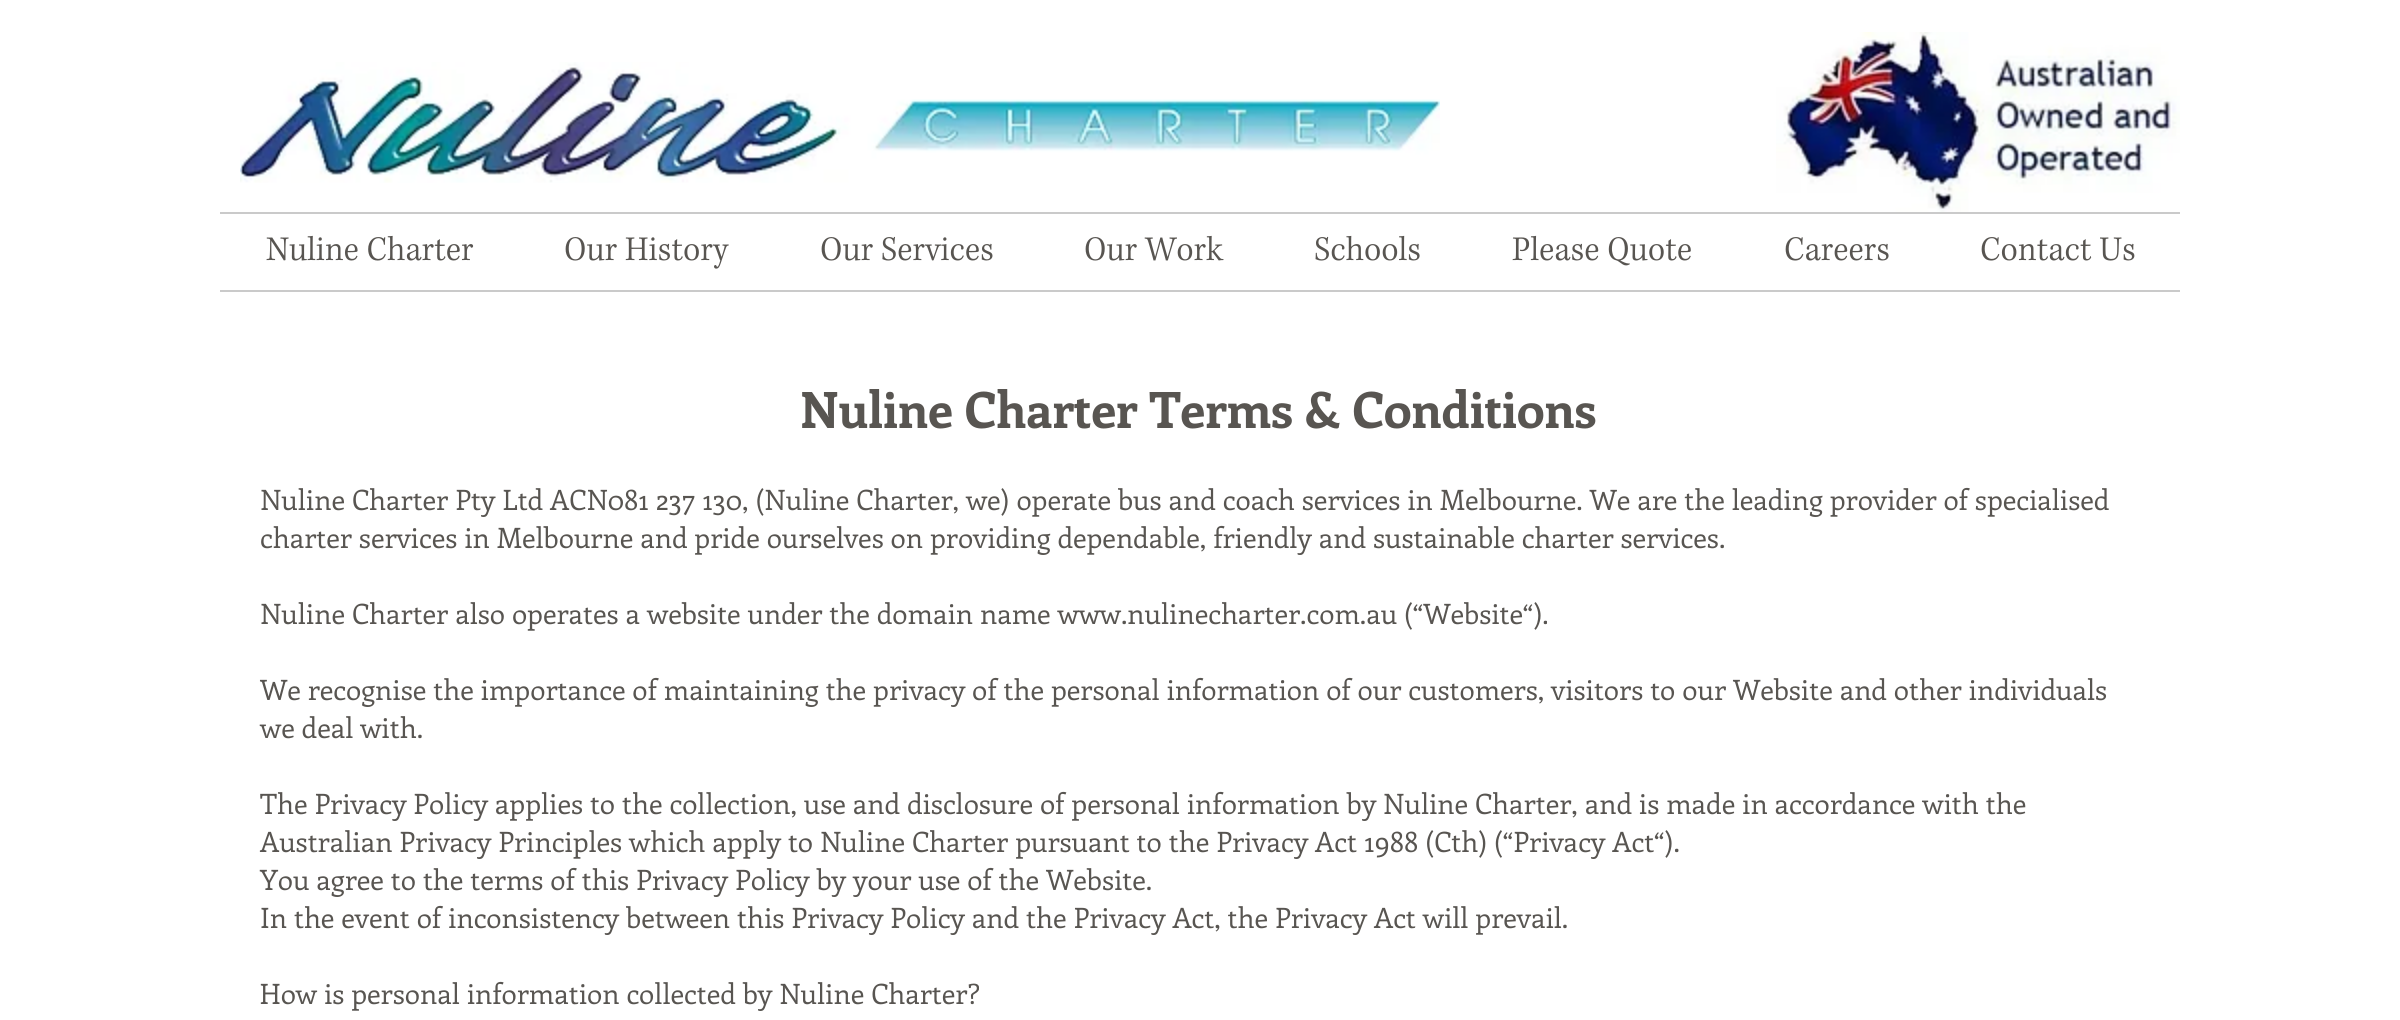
#include <cairo.h>
#include <math.h>
#include <stddef.h>

typedef struct { const char *family; double size; int italic, bold; unsigned color; } style_t;
static cairo_t *ctx;

static void ink(unsigned color) {
    cairo_set_source_rgb(ctx, (color >> 16) / 255.0, (color >> 8 & 255) / 255.0, (color & 255) / 255.0);
}

static void write(double x, double y, const char *s, const style_t *st) {
    cairo_select_font_face(ctx, st->family, st->italic ? CAIRO_FONT_SLANT_ITALIC : CAIRO_FONT_SLANT_NORMAL,
        st->bold ? CAIRO_FONT_WEIGHT_BOLD : CAIRO_FONT_WEIGHT_NORMAL);
    cairo_set_font_size(ctx, st->size);
    ink(st->color);
    cairo_move_to(ctx, x, y);
    cairo_show_text(ctx, s);
}

static void block(double x, double y, double w, double h, unsigned color) {
    ink(color);
    cairo_rectangle(ctx, x, y, w, h);
    cairo_fill(ctx);
}

static void paste(const char *path, double x, double y, double w, double h) {
    cairo_surface_t *image = cairo_image_surface_create_from_png(path);
    cairo_save(ctx);
    cairo_set_source_surface(ctx, image, x, y);
    cairo_rectangle(ctx, x, y, w, h);
    cairo_fill(ctx);
    cairo_restore(ctx);
    cairo_surface_destroy(image);
}

static const style_t s1 = {"Enriqueta", 50, 0, 1, 0x585551};
static const style_t s2 = {"Enriqueta", 28, 0, 0, 0x585551};

int main(void) {
    cairo_surface_t *surface = cairo_image_surface_create(CAIRO_FORMAT_RGB24, 2400, 1020);
    ctx = cairo_create(surface);
    cairo_font_options_t *options = cairo_font_options_create();
    cairo_font_options_set_hint_metrics(options, CAIRO_HINT_METRICS_OFF);
    cairo_font_options_set_hint_style(options, CAIRO_HINT_STYLE_NONE);
    cairo_set_font_options(ctx, options);
    cairo_set_miter_limit(ctx, 4);
    ink(0xffffff);
    cairo_paint(ctx);
    paste("pic1.png", 240, 62, 1200, 121);
    paste("pic2.png", 1776, 32, 404, 180);
    block(220, 212, 1960, 2, 0xcacaca);
    block(220, 290, 1960, 2, 0xcacaca);
    paste("pic3.png", 266, 235, 208, 26);
    paste("pic4.png", 565, 237, 164, 32);
    paste("pic5.png", 821, 236, 172, 25);
    paste("pic6.png", 1085, 235, 139, 26);
    paste("pic7.png", 1315, 235, 105, 26);
    paste("pic8.png", 1512, 235, 179, 31);
    paste("pic9.png", 1785, 237, 104, 24);
    paste("pic10.png", 1981, 237, 154, 24);
    write(800, 428, "Nuline Charter Terms & Conditions", &s1);
    write(260, 510, "Nuline Charter Pty Ltd ACN081 237 130, (Nuline Charter, we) operate bus and coach services in Melbourne. We are the leading provider of specialised", &s2);
    write(260, 548, "charter services in Melbourne and pride ourselves on providing dependable, friendly and sustainable charter services.", &s2);
    write(260, 624, "Nuline Charter also operates a website under the domain name www.nulinecharter.com.au (“Website“).", &s2);
    write(260, 700, "We recognise the importance of maintaining the privacy of the personal information of our customers, visitors to our Website and other individuals", &s2);
    write(260, 738, "we deal with.", &s2);
    write(260, 814, "The Privacy Policy applies to the collection, use and disclosure of personal information by Nuline Charter, and is made in accordance with the", &s2);
    write(260, 852, "Australian Privacy Principles which apply to Nuline Charter pursuant to the Privacy Act 1988 (Cth) (“Privacy Act“).", &s2);
    write(260, 890, "You agree to the terms of this Privacy Policy by your use of the Website.", &s2);
    write(260, 928, "In the event of inconsistency between this Privacy Policy and the Privacy Act, the Privacy Act will prevail.", &s2);
    write(260, 1004, "How is personal information collected by Nuline Charter?", &s2);
    cairo_surface_write_to_png(surface, "screenshot.png");
    cairo_font_options_destroy(options);
    cairo_destroy(ctx);
    cairo_surface_destroy(surface);
    return 0;
}
